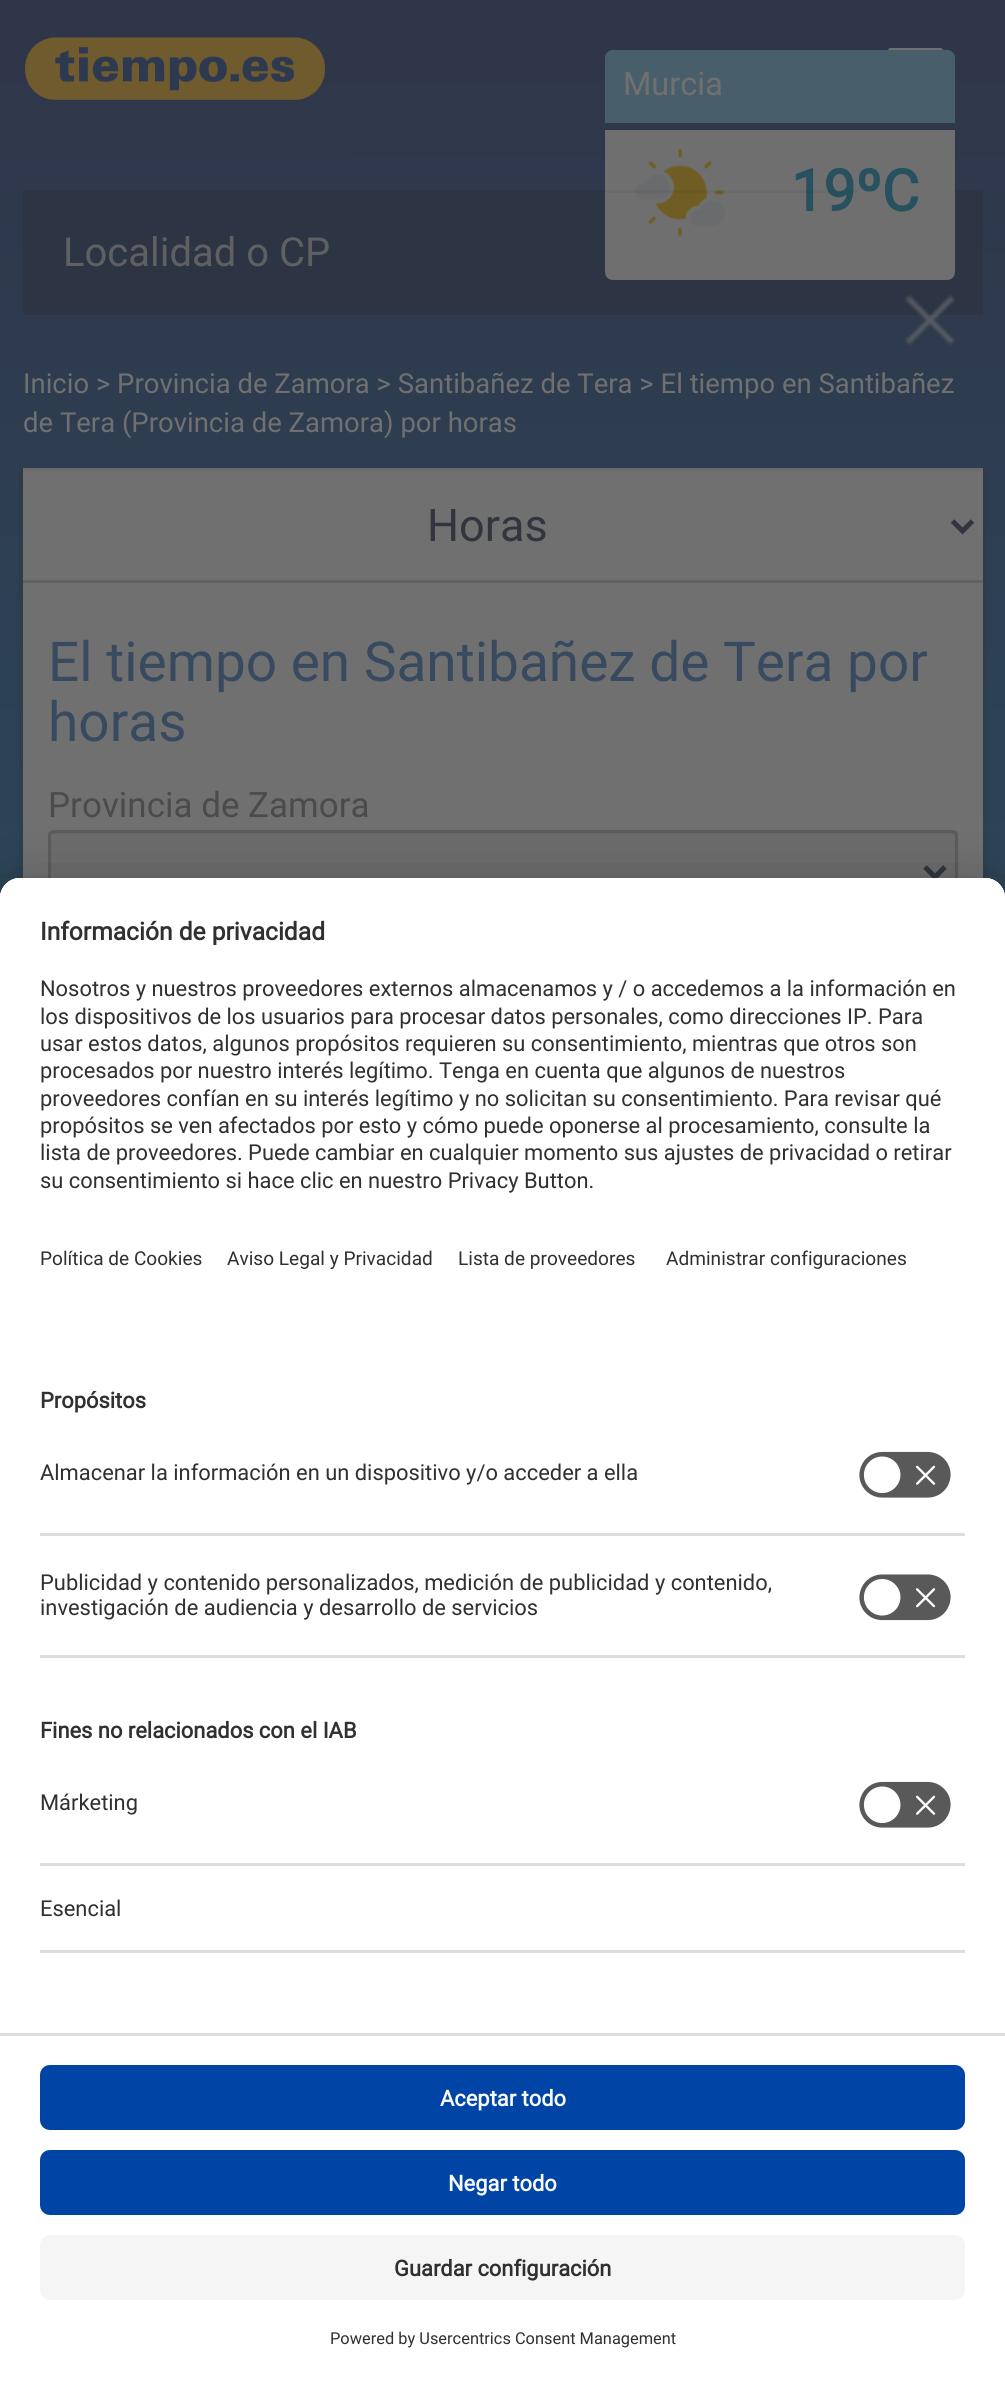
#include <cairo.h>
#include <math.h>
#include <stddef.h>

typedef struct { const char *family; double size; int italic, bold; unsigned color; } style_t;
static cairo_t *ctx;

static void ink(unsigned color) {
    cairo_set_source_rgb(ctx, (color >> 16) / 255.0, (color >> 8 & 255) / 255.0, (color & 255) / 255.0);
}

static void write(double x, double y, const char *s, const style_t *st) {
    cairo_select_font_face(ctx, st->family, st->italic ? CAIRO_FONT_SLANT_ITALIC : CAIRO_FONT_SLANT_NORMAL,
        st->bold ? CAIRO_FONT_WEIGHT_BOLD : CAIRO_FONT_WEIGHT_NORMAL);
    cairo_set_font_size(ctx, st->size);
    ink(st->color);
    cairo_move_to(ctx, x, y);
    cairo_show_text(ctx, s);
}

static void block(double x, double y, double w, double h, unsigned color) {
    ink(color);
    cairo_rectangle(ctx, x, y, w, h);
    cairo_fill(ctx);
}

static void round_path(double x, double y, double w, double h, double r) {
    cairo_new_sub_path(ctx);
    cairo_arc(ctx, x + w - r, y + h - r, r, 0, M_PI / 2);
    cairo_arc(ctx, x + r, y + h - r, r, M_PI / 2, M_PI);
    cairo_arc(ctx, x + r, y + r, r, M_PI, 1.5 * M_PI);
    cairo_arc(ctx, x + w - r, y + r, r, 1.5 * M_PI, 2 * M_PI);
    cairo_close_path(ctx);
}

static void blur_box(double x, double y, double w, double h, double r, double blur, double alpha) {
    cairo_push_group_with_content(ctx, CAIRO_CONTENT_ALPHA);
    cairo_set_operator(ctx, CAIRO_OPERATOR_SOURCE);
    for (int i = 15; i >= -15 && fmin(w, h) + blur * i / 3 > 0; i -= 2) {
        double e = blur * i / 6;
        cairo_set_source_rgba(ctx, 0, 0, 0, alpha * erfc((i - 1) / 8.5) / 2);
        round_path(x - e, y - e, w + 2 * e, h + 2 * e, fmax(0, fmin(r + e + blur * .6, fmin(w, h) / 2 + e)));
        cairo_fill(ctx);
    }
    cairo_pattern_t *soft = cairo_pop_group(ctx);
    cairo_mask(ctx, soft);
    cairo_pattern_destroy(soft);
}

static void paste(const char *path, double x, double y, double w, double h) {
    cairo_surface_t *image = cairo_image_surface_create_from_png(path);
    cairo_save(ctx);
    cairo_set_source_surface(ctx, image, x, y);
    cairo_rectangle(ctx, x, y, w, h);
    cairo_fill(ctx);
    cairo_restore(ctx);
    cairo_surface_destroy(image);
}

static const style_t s1 = {"Roboto", 32.5, 0, 0, 0x707070};
static const style_t s2 = {"Roboto", 57.5, 0, 1, 0x27515f};
static const style_t s3 = {"Roboto", 40, 0, 0, 0x5f6062};
static const style_t s4 = {"Roboto", 27.5, 0, 0, 0x707070};
static const style_t s5 = {"Roboto", 45, 0, 0, 0x31353d};
static const style_t s6 = {"Roboto", 55, 0, 0, 0x384a60};
static const style_t s7 = {"Roboto", 35, 0, 0, 0x4b4b4b};
static const style_t s8 = {"Roboto", 24.6, 0, 1, 0x303030};
static const style_t s9 = {"Roboto", 21.9, 0, 0, 0x303030};
static const style_t s10 = {"Roboto", 19.1, 0, 0, 0x303030};
static const style_t s11 = {"Roboto", 21.9, 0, 1, 0x303030};
static const style_t s12 = {"Roboto", 21.9, 0, 1, 0xfafafa};
static const style_t s13 = {"Roboto", 16.4, 0, 0, 0x303030};

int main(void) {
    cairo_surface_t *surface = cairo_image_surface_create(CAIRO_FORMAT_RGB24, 1005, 2389);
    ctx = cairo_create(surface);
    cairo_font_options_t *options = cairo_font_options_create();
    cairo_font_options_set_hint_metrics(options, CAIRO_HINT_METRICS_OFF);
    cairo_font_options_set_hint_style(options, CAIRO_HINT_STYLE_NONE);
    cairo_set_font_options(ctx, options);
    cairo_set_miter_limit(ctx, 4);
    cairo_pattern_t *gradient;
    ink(0xffffff);
    cairo_paint(ctx);
    gradient = cairo_pattern_create_linear(502, 0, 503, 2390);
    cairo_pattern_add_color_stop_rgba(gradient, 0, 0.188, 0.208, 0.286, 1);
    cairo_pattern_add_color_stop_rgba(gradient, 1, 0.141, 0.373, 0.439, 1);
    cairo_set_source(ctx, gradient);
    cairo_pattern_destroy(gradient);
    cairo_rectangle(ctx, 0, 0, 1005, 898);
    cairo_fill(ctx);
    gradient = cairo_pattern_create_linear(502, 0, 503, 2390);
    cairo_pattern_add_color_stop_rgba(gradient, 0, 0.18, 0.192, 0.255, 1);
    cairo_pattern_add_color_stop_rgba(gradient, 1, 0.141, 0.325, 0.38, 1);
    cairo_set_source(ctx, gradient);
    cairo_pattern_destroy(gradient);
    cairo_rectangle(ctx, 23, 190, 960, 125);
    cairo_fill(ctx);
    paste("pic1.png", 25, 37, 300, 63);
    ink(0x707070);
    round_path(888, 48, 55, 8, 2.5);
    cairo_fill(ctx);
    ink(0x485e6b);
    cairo_new_path(ctx);
    cairo_move_to(ctx, 613, 50);
    cairo_line_to(ctx, 947, 50);
    cairo_curve_to(ctx, 951.5, 50, 955, 53.5, 955, 58);
    cairo_line_to(ctx, 955, 123);
    cairo_line_to(ctx, 605, 123);
    cairo_line_to(ctx, 605, 58);
    cairo_curve_to(ctx, 605, 53.5, 608.5, 50, 613, 50);
    cairo_close_path(ctx);
    cairo_fill(ctx);
    write(623, 95, "Murcia", &s1);
    ink(0x6f6f6f);
    cairo_new_path(ctx);
    cairo_move_to(ctx, 605, 130);
    cairo_line_to(ctx, 955, 130);
    cairo_line_to(ctx, 955, 272);
    cairo_curve_to(ctx, 955, 276.5, 951.5, 280, 947, 280);
    cairo_line_to(ctx, 613, 280);
    cairo_curve_to(ctx, 608.5, 280, 605, 276.5, 605, 272);
    cairo_close_path(ctx);
    cairo_fill(ctx);
    paste("pic2.png", 634, 148, 92, 89);
    write(791, 211, "19ºC", &s2);
    paste("pic3.png", 904, 294, 52, 52);
    cairo_set_source_rgba(ctx, 0.141, 0.141, 0.141, 0.07);
    cairo_rectangle(ctx, 605, 190, 253, 3);
    cairo_fill(ctx);
    write(63, 266, "Localidad o CP", &s3);
    write(23, 393, "Inicio > Provincia de Zamora > Santibañez de Tera > El tiempo en Santibañez", &s4);
    write(23, 432, "de Tera (Provincia de Zamora) por horas", &s4);
    ink(0x2b2b2b);
    blur_box(23, 473, 960, 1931, 0, 5, 0.4);
    block(23, 471, 960, 407, 0x707070);
    block(23, 468, 960, 3, 0x6b6b6b);
    block(23, 580, 960, 3, 0x616161);
    cairo_new_path(ctx);
    cairo_move_to(ctx, 952.5, 521);
    cairo_line_to(ctx, 962.5, 531);
    cairo_line_to(ctx, 972.5, 521);
    ink(0x31353d);
    cairo_set_line_width(ctx, 5);
    cairo_stroke(ctx);
    write(427, 541, "Horas", &s5);
    write(48, 681, "El tiempo en Santibañez de Tera por", &s6);
    write(48, 741, "horas", &s6);
    write(48, 817, "Provincia de Zamora", &s7);
    ink(0x6c6c6c);
    round_path(48, 830, 910, 85, 5);
    cairo_fill(ctx);
    ink(0x676767);
    cairo_new_path(ctx);
    cairo_move_to(ctx, 52, 835);
    cairo_line_to(ctx, 952, 835);
    cairo_curve_to(ctx, 954, 835, 955, 836, 955, 838);
    cairo_line_to(ctx, 955, 836);
    cairo_curve_to(ctx, 955, 834, 954, 833, 952, 833);
    cairo_line_to(ctx, 52, 833);
    cairo_curve_to(ctx, 51, 833, 50, 834, 50, 836);
    cairo_line_to(ctx, 50, 838);
    cairo_curve_to(ctx, 50, 836, 51, 835, 52, 835);
    cairo_close_path(ctx);
    cairo_fill(ctx);
    round_path(49.5, 831.5, 907, 82, 3.5);
    ink(0x5d5c5c);
    cairo_set_line_width(ctx, 3);
    cairo_stroke(ctx);
    cairo_new_path(ctx);
    cairo_move_to(ctx, 925, 867);
    cairo_line_to(ctx, 935, 877);
    cairo_line_to(ctx, 945, 867);
    ink(0x31353d);
    cairo_set_line_width(ctx, 5);
    cairo_stroke(ctx);
    ink(0x000000);
    blur_box(0, 928, 1005, 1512, 20, 35, 0.3);
    blur_box(0, 890, 1005, 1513, 20, 32.5, 0.22);
    ink(0xffffff);
    cairo_new_path(ctx);
    cairo_move_to(ctx, 20, 878);
    cairo_line_to(ctx, 985, 878);
    cairo_curve_to(ctx, 996, 878, 1005, 887, 1005, 898);
    cairo_line_to(ctx, 1005, 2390);
    cairo_line_to(ctx, 0, 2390);
    cairo_line_to(ctx, 0, 898);
    cairo_curve_to(ctx, 0, 887, 9, 878, 20, 878);
    cairo_close_path(ctx);
    cairo_fill(ctx);
    cairo_new_path(ctx);
    cairo_move_to(ctx, 20, 878);
    cairo_line_to(ctx, 985, 878);
    cairo_curve_to(ctx, 996, 878, 1005, 887, 1005, 898);
    cairo_line_to(ctx, 1005, 2033);
    cairo_line_to(ctx, 0, 2033);
    cairo_line_to(ctx, 0, 898);
    cairo_curve_to(ctx, 0, 887, 9, 878, 20, 878);
    cairo_close_path(ctx);
    cairo_fill(ctx);
    cairo_new_path(ctx);
    cairo_move_to(ctx, 20, 878);
    cairo_line_to(ctx, 985, 878);
    cairo_curve_to(ctx, 996, 878, 1005, 887, 1005, 898);
    cairo_line_to(ctx, 1005, 1358);
    cairo_line_to(ctx, 0, 1358);
    cairo_line_to(ctx, 0, 898);
    cairo_curve_to(ctx, 0, 887, 9, 878, 20, 878);
    cairo_close_path(ctx);
    cairo_fill(ctx);
    write(40, 940, "Información de privacidad", &s8);
    write(40, 996, "Nosotros y nuestros proveedores externos almacenamos y / o accedemos a la información en", &s9);
    write(40, 1024, "los dispositivos de los usuarios para procesar datos personales, como direcciones IP. Para", &s9);
    write(40, 1051, "usar estos datos, algunos propósitos requieren su consentimiento, mientras que otros son", &s9);
    write(40, 1078, "procesados por nuestro interés legítimo. Tenga en cuenta que algunos de nuestros", &s9);
    write(40, 1106, "proveedores confían en su interés legítimo y no solicitan su consentimiento. Para revisar qué", &s9);
    write(40, 1133, "propósitos se ven afectados por esto y cómo puede oponerse al procesamiento, consulte la", &s9);
    write(40, 1160, "lista de proveedores. Puede cambiar en cualquier momento sus ajustes de privacidad o retirar", &s9);
    write(40, 1188, "su consentimiento si hace clic en nuestro Privacy Button.", &s9);
    write(40, 1265, "Política de Cookies", &s10);
    write(227, 1265, "Aviso Legal y Privacidad", &s10);
    write(458, 1265, "Lista de proveedores", &s10);
    write(666, 1265, "Administrar configuraciones", &s10);
    write(40, 1408, "Propósitos", &s11);
    block(40, 1533, 925, 3, 0xdddddd);
    write(40, 1480, "Almacenar la información en un dispositivo y/o acceder a ella", &s9);
    paste("pic4.png", 859, 1451, 92, 47);
    block(40, 1655, 925, 3, 0xdddddd);
    write(40, 1590, "Publicidad y contenido personalizados, medición de publicidad y contenido,", &s9);
    write(40, 1615, "investigación de audiencia y desarrollo de servicios", &s9);
    paste("pic5.png", 859, 1574, 92, 47);
    write(40, 1738, "Fines no relacionados con el IAB", &s11);
    block(40, 1863, 925, 3, 0xdddddd);
    write(40, 1810, "Márketing", &s9);
    paste("pic4.png", 859, 1781, 92, 47);
    block(40, 1950, 925, 3, 0xdddddd);
    write(40, 1916, "Esencial", &s9);
    block(0, 2033, 1005, 3, 0xdddddd);
    ink(0x0045a5);
    round_path(40, 2065, 925, 65, 10);
    cairo_fill(ctx);
    write(440, 2106, "Aceptar todo", &s12);
    ink(0x0045a5);
    round_path(40, 2150, 925, 65, 10);
    cairo_fill(ctx);
    write(448, 2191, "Negar todo", &s12);
    ink(0xf5f5f5);
    round_path(40, 2235, 925, 65, 10);
    cairo_fill(ctx);
    write(394, 2276, "Guardar configuración", &s11);
    write(330, 2344, "Powered by Usercentrics Consent Management", &s13);
    cairo_surface_write_to_png(surface, "screenshot.png");
    cairo_font_options_destroy(options);
    cairo_destroy(ctx);
    cairo_surface_destroy(surface);
    return 0;
}
